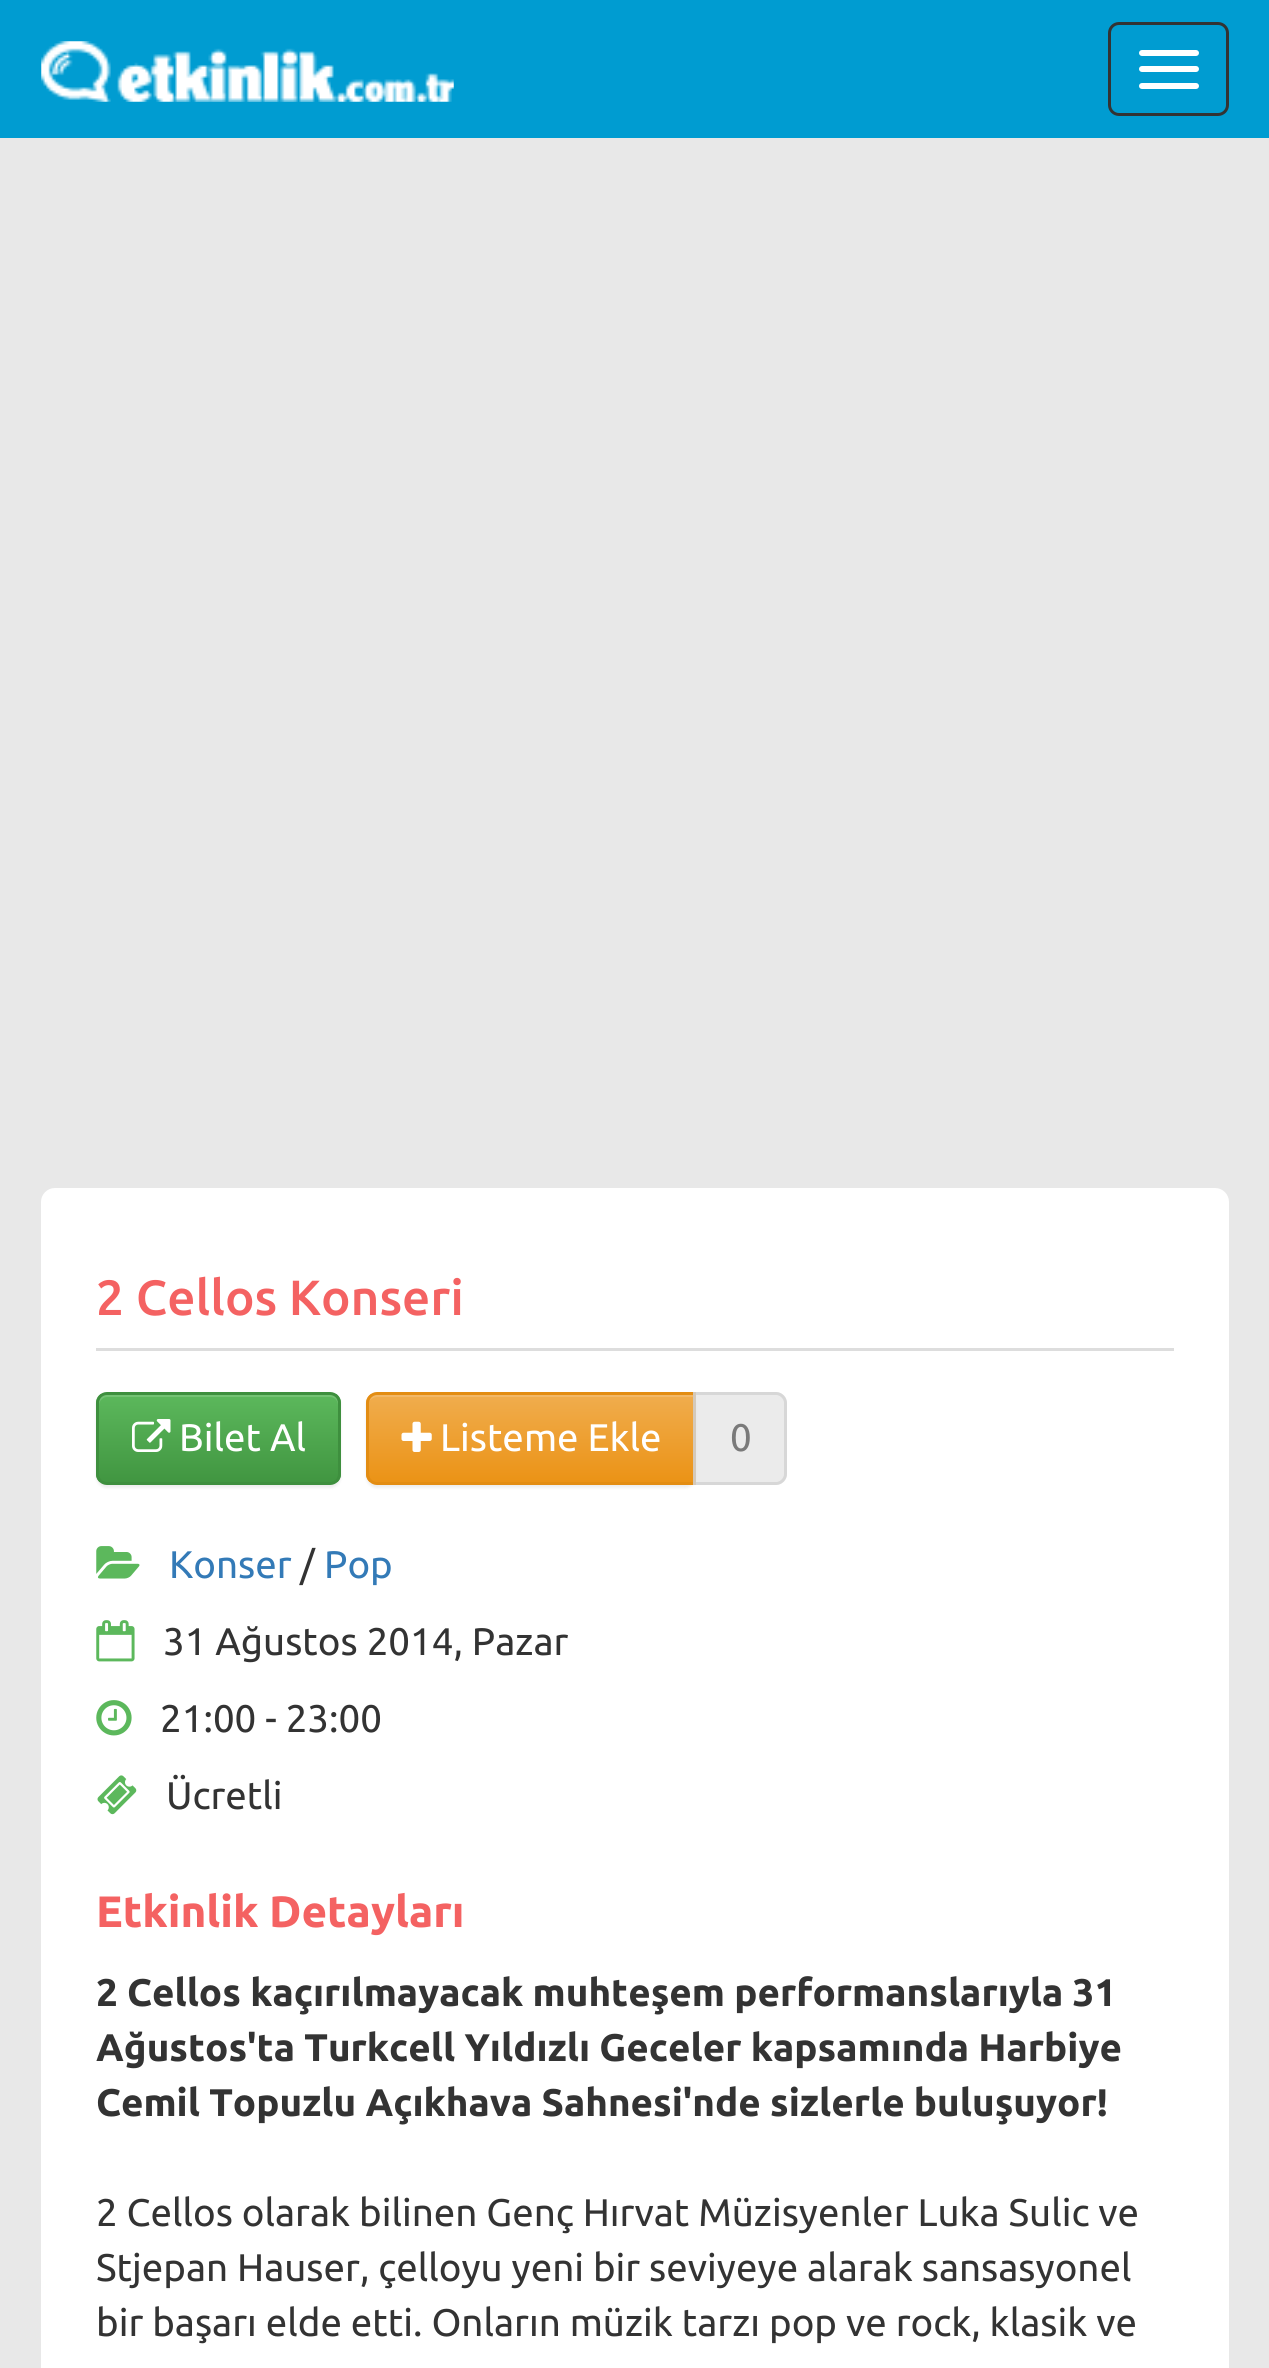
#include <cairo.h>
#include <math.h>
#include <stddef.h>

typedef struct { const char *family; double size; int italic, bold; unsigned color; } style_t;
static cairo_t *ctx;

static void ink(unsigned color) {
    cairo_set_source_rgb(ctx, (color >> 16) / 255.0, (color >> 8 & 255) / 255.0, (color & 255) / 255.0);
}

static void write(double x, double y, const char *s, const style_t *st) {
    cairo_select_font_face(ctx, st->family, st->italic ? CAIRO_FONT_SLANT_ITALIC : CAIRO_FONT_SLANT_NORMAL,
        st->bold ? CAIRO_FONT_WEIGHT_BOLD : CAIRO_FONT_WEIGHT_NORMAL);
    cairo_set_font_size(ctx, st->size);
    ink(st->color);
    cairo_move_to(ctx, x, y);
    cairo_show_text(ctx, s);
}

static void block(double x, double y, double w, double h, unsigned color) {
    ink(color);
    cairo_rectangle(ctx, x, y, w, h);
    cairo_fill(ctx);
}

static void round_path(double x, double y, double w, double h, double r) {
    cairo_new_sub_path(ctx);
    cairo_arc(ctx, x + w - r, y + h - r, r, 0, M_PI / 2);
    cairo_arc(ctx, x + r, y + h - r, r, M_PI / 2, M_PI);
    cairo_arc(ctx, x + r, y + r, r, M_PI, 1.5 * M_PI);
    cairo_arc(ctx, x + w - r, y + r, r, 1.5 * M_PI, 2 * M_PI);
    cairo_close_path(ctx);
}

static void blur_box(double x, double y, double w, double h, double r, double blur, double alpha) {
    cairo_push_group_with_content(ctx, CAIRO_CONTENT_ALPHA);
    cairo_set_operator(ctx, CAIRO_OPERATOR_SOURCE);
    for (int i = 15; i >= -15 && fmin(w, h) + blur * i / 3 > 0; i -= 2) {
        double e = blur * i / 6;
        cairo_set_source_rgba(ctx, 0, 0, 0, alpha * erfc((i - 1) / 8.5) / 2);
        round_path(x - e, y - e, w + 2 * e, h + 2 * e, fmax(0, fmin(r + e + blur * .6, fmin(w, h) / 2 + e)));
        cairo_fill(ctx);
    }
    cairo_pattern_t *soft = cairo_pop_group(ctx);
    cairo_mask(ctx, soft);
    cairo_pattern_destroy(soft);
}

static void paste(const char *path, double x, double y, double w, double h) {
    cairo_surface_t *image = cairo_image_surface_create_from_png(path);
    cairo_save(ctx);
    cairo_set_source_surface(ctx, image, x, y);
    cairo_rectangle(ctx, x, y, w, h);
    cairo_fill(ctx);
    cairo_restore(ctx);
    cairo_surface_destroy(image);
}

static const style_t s1 = {"Ubuntu Medium", 49.5, 0, 0, 0xf46262};
static const style_t s2 = {"Ubuntu", 38.5, 0, 0, 0xffffff};
static const style_t s3 = {"Ubuntu", 38.5, 0, 0, 0x7a7a7a};
static const style_t s4 = {"Ubuntu", 38.5, 0, 0, 0x337ab7};
static const style_t s5 = {"Ubuntu", 38.5, 0, 0, 0x333333};
static const style_t s6 = {"Ubuntu", 44, 0, 1, 0xf46262};
static const style_t s7 = {"Ubuntu", 38.5, 0, 1, 0x333333};

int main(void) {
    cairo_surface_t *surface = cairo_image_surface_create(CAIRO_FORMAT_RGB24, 1269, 2368);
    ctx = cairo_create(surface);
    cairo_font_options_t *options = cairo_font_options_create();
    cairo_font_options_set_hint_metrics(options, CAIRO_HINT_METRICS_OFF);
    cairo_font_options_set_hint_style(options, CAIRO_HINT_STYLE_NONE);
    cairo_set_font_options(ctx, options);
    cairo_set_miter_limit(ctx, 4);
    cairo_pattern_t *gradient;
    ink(0xe8e8e8);
    cairo_paint(ctx);
    block(0, 0, 1269, 138, 0x009cd1);
    paste("pic1.png", 41, 41, 413, 61);
    round_path(1109.5, 23.5, 118, 91, 9.5);
    ink(0x333333);
    cairo_set_line_width(ctx, 3);
    cairo_stroke(ctx);
    ink(0xffffff);
    round_path(1139, 50, 60, 6, 3);
    cairo_fill(ctx);
    round_path(1139, 66, 60, 6, 3);
    cairo_fill(ctx);
    round_path(1139, 83, 60, 6, 3);
    cairo_fill(ctx);
    round_path(41, 1188, 1188, 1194, 14);
    cairo_fill(ctx);
    block(96, 1348, 1078, 3, 0xdddddd);
    write(96, 1315, "2 Cellos Konseri", &s1);
    ink(0x000000);
    blur_box(96, 1394, 245, 94, 11, 1.5, 0.07);
    cairo_save(ctx);
    round_path(96, 1392, 245, 93, 11);
    cairo_clip(ctx);
    gradient = cairo_pattern_create_linear(219, 1394, 219, 1482);
    cairo_pattern_add_color_stop_rgba(gradient, 0, 0.361, 0.722, 0.361, 1);
    cairo_pattern_add_color_stop_rgba(gradient, 1, 0.255, 0.588, 0.255, 1);
    cairo_set_source(ctx, gradient);
    cairo_pattern_destroy(gradient);
    cairo_rectangle(ctx, 96, 1394, 245, 88);
    cairo_fill(ctx);
    cairo_restore(ctx);
    cairo_set_source_rgba(ctx, 1, 1, 1, 0.15);
    cairo_new_path(ctx);
    cairo_move_to(ctx, 107, 1397);
    cairo_line_to(ctx, 330, 1397);
    cairo_curve_to(ctx, 335, 1397, 338, 1401, 338, 1405);
    cairo_line_to(ctx, 338, 1402);
    cairo_curve_to(ctx, 338, 1398, 334, 1394, 330, 1394);
    cairo_line_to(ctx, 107, 1394);
    cairo_curve_to(ctx, 103, 1394, 99, 1398, 99, 1402);
    cairo_line_to(ctx, 99, 1405);
    cairo_curve_to(ctx, 99, 1401, 103, 1397, 107, 1397);
    cairo_close_path(ctx);
    cairo_fill(ctx);
    round_path(97.5, 1393.5, 242, 90, 9.5);
    ink(0x3e8f3e);
    cairo_stroke(ctx);
    paste("pic2.png", 132, 1419, 39, 33);
    write(179, 1451, "Bilet Al", &s2);
    ink(0x000000);
    blur_box(366, 1394, 330, 94, 11, 1.5, 0.07);
    cairo_save(ctx);
    cairo_new_path(ctx);
    cairo_move_to(ctx, 377, 1392);
    cairo_line_to(ctx, 696, 1392);
    cairo_line_to(ctx, 696, 1485);
    cairo_line_to(ctx, 377, 1485);
    cairo_curve_to(ctx, 371, 1485, 366, 1480, 366, 1474);
    cairo_line_to(ctx, 366, 1403);
    cairo_curve_to(ctx, 366, 1397, 371, 1392, 377, 1392);
    cairo_close_path(ctx);
    cairo_clip(ctx);
    gradient = cairo_pattern_create_linear(531, 1394, 531, 1482);
    cairo_pattern_add_color_stop_rgba(gradient, 0, 0.941, 0.678, 0.306, 1);
    cairo_pattern_add_color_stop_rgba(gradient, 1, 0.922, 0.576, 0.086, 1);
    cairo_set_source(ctx, gradient);
    cairo_pattern_destroy(gradient);
    cairo_rectangle(ctx, 366, 1394, 327, 88);
    cairo_fill(ctx);
    cairo_restore(ctx);
    cairo_set_source_rgba(ctx, 1, 1, 1, 0.15);
    cairo_new_path(ctx);
    cairo_move_to(ctx, 377, 1397);
    cairo_line_to(ctx, 693, 1397);
    cairo_line_to(ctx, 693, 1394);
    cairo_line_to(ctx, 377, 1394);
    cairo_curve_to(ctx, 373, 1394, 369, 1397, 369, 1401);
    cairo_curve_to(ctx, 371, 1399, 374, 1397, 377, 1397);
    cairo_close_path(ctx);
    cairo_fill(ctx);
    cairo_new_path(ctx);
    cairo_move_to(ctx, 377, 1393.5);
    cairo_line_to(ctx, 694.5, 1393.5);
    cairo_line_to(ctx, 694.5, 1483.5);
    cairo_line_to(ctx, 377, 1483.5);
    cairo_curve_to(ctx, 372, 1483.5, 367.5, 1479, 367.5, 1474);
    cairo_line_to(ctx, 367.5, 1403);
    cairo_curve_to(ctx, 367.5, 1398, 372, 1393.5, 377, 1393.5);
    cairo_close_path(ctx);
    ink(0xe38d13);
    cairo_stroke(ctx);
    paste("pic3.png", 401, 1421, 31, 31);
    write(440, 1451, "Listeme Ekle", &s2);
    cairo_set_source_rgba(ctx, 0.878, 0.878, 0.878, 0.65);
    cairo_new_path(ctx);
    cairo_move_to(ctx, 693, 1392);
    cairo_line_to(ctx, 776, 1392);
    cairo_curve_to(ctx, 782, 1392, 787, 1397, 787, 1403);
    cairo_line_to(ctx, 787, 1474);
    cairo_curve_to(ctx, 787, 1480, 782, 1485, 776, 1485);
    cairo_line_to(ctx, 693, 1485);
    cairo_close_path(ctx);
    cairo_fill(ctx);
    cairo_new_path(ctx);
    cairo_move_to(ctx, 694.5, 1393.5);
    cairo_line_to(ctx, 776, 1393.5);
    cairo_curve_to(ctx, 781, 1393.5, 785.5, 1398, 785.5, 1403);
    cairo_line_to(ctx, 785.5, 1474);
    cairo_curve_to(ctx, 785.5, 1479, 781, 1483.5, 776, 1483.5);
    cairo_line_to(ctx, 694.5, 1483.5);
    cairo_close_path(ctx);
    cairo_set_source_rgba(ctx, 0.8, 0.8, 0.8, 0.65);
    cairo_stroke(ctx);
    write(730, 1451, "0", &s3);
    paste("pic4.png", 96, 1546, 44, 33);
    write(169, 1578, "Konser", &s4);
    write(300, 1578, "/", &s5);
    write(324, 1578, "Pop", &s4);
    paste("pic5.png", 96, 1620, 39, 42);
    write(163, 1655, "31 Ağustos 2014, Pazar", &s5);
    paste("pic6.png", 96, 1700, 36, 36);
    write(160, 1732, "21:00 - 23:00", &s5);
    paste("pic7.png", 97, 1775, 40, 40);
    write(166, 1809, "Ücretli", &s5);
    write(96, 1927, "Etkinlik Detayları", &s6);
    write(96, 2006, "2 Cellos kaçırılmayacak muhteşem performanslarıyla 31", &s7);
    write(96, 2061, "Ağustos'ta Turkcell Yıldızlı Geceler kapsamında Harbiye", &s7);
    write(96, 2116, "Cemil Topuzlu Açıkhava Sahnesi'nde sizlerle buluşuyor!", &s7);
    write(96, 2226, "2 Cellos olarak bilinen Genç Hırvat Müzisyenler Luka Sulic ve", &s5);
    write(96, 2281, "Stjepan Hauser, çelloyu yeni bir seviyeye alarak sansasyonel", &s5);
    write(96, 2336, "bir başarı elde etti. Onların müzik tarzı pop ve rock, klasik ve", &s5);
    cairo_surface_write_to_png(surface, "screenshot.png");
    cairo_font_options_destroy(options);
    cairo_destroy(ctx);
    cairo_surface_destroy(surface);
    return 0;
}
